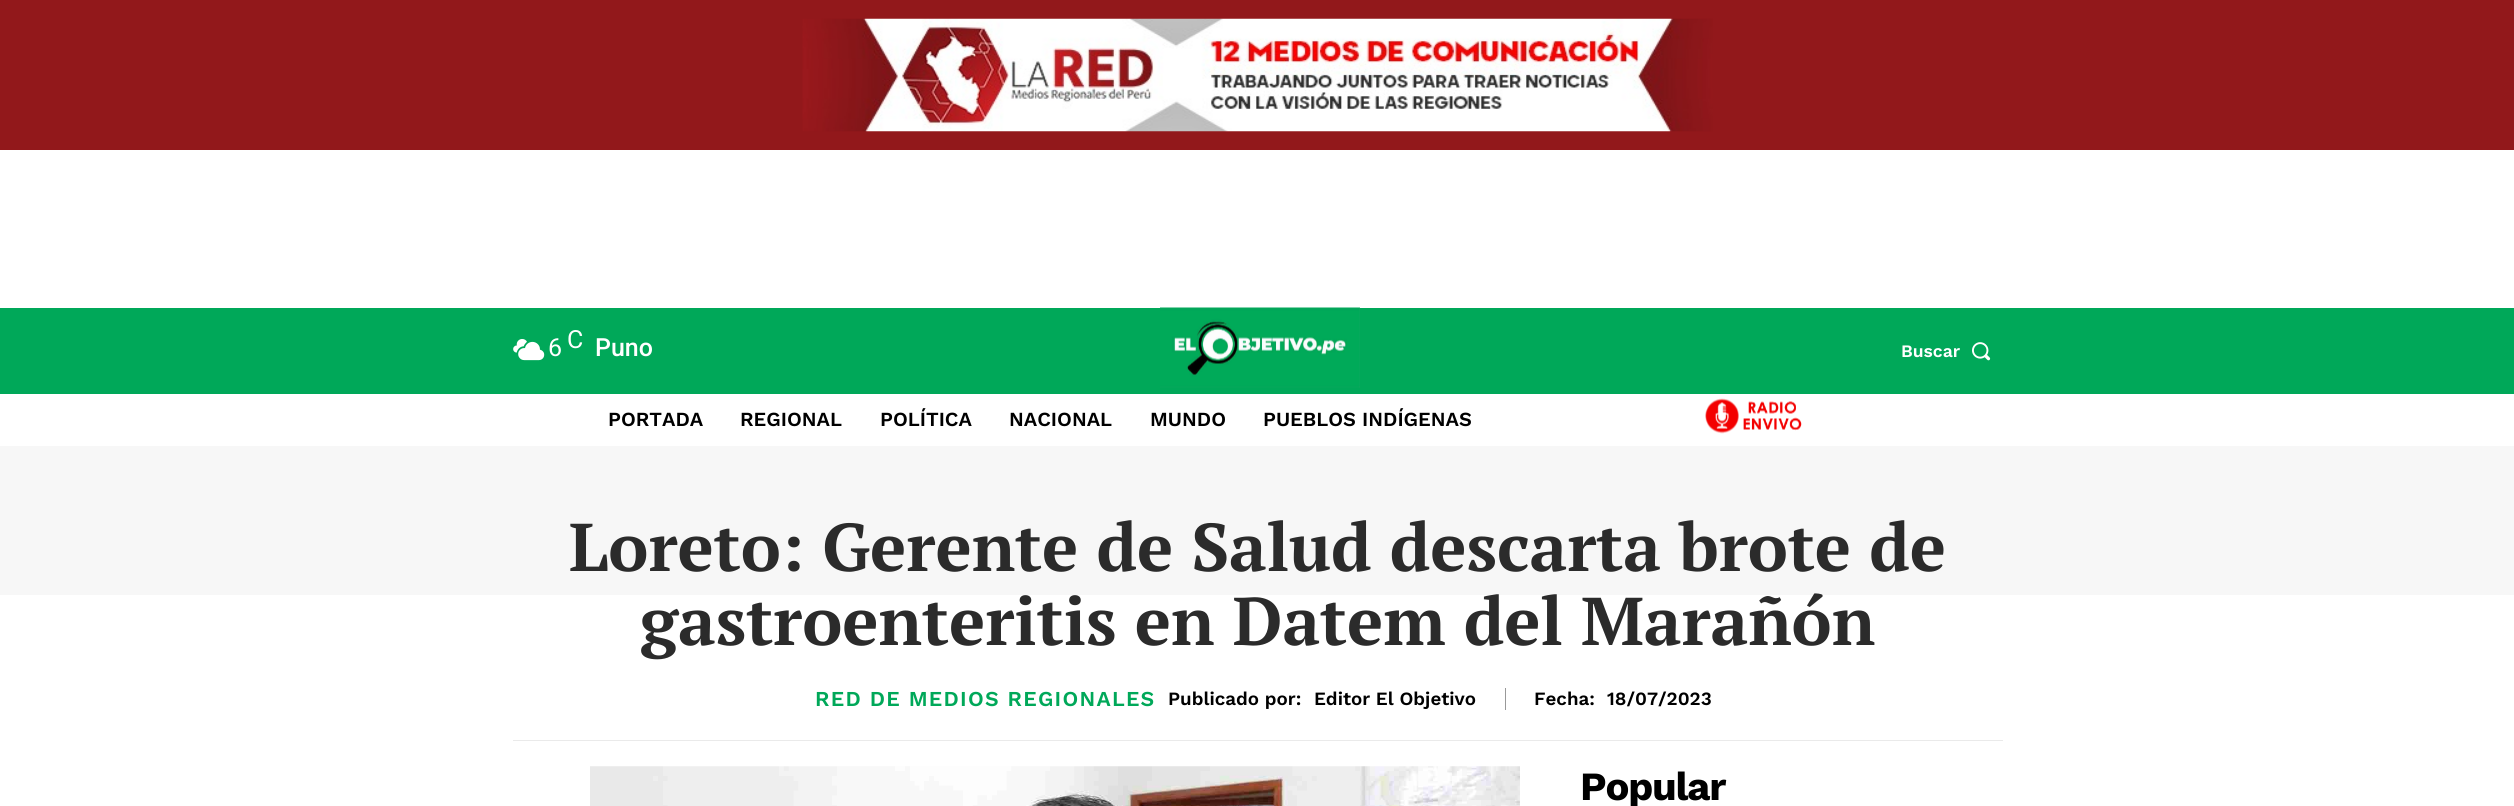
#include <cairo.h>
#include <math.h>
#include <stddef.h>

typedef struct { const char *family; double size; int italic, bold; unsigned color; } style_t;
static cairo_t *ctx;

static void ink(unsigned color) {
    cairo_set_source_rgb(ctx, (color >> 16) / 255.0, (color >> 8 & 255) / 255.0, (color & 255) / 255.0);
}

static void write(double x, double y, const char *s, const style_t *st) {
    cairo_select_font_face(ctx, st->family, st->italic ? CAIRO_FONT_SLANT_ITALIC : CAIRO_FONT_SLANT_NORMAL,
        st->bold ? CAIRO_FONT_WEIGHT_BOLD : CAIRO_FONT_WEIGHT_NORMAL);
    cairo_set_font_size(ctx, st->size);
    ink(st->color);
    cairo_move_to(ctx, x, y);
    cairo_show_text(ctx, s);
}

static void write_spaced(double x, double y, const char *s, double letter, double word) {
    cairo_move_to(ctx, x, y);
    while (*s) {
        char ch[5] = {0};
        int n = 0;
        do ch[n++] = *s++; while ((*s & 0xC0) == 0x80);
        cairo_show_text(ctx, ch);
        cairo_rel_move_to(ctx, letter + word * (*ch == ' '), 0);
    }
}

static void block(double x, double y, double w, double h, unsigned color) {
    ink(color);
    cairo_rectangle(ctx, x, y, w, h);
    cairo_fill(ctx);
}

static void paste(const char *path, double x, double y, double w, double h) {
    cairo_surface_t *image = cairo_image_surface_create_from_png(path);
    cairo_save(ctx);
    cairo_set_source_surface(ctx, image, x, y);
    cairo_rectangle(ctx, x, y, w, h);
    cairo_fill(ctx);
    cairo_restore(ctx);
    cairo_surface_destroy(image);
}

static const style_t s1 = {"Roboto", 25, 0, 0, 0xffffff};
static const style_t s2 = {"Roboto Medium", 25, 0, 0, 0xffffff};
static const style_t s3 = {"Work Sans SemiBold", 17.5, 0, 0, 0xffffff};
static const style_t s4 = {"Work Sans SemiBold", 20, 0, 0, 0x000000};
static const style_t s5 = {"PT Serif", 67.5, 0, 1, 0x2b2b2b};
static const style_t s6 = {"Work Sans SemiBold", 18.75, 0, 0, 0x000000};

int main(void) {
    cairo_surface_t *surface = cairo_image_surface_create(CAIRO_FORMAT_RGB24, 2514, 806);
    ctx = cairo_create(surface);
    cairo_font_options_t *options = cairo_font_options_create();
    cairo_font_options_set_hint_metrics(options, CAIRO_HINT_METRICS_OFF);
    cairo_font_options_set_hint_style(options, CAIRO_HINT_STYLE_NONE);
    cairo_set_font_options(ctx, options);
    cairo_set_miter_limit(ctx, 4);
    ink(0xffffff);
    cairo_paint(ctx);
    paste("pic1.png", 0, 0, 2514, 150);
    block(0, 308, 2514, 86, 0x00a859);
    paste("pic2.png", 1160, 307, 200, 81);
    paste("pic3.png", 513, 339, 32, 22);
    write(548, 356, "6", &s1);
    write(567, 348, "C", &s1);
    write(595, 356, "Puno", &s2);
    write(1901, 357, "Buscar", &s3);
    paste("pic4.png", 1972, 342, 19, 19);
    write(608, 426, "PORTADA", &s4);
    write(740, 426, "REGIONAL", &s4);
    write(880, 426, "POLÍTICA", &s4);
    write(1009, 426, "NACIONAL", &s4);
    write(1150, 426, "MUNDO", &s4);
    write(1263, 426, "PUEBLOS INDÍGENAS", &s4);
    paste("pic5.png", 1705, 398, 97, 36);
    block(0, 446, 2514, 149, 0xf7f7f7);
    write(569, 571, "Loreto: Gerente de Salud descarta brote de", &s5);
    write(640, 645, "gastroenteritis en Datem del Marañón", &s5);
    cairo_select_font_face(ctx, "Work Sans SemiBold", CAIRO_FONT_SLANT_NORMAL, CAIRO_FONT_WEIGHT_NORMAL);
    cairo_set_font_size(ctx, 21.25);
    ink(0x00a859);
    write_spaced(815, 706, "RED DE MEDIOS REGIONALES", 1.25, 0);
    write(1168, 705, "Publicado por:", &s6);
    write(1314, 705, "Editor El Objetivo", &s6);
    block(1505, 688, 1, 22, 0x999999);
    write(1534, 705, "Fecha:", &s6);
    write(1607, 705, "18/07/2023", &s6);
    block(513, 740, 1490, 1, 0xeaeaea);
    paste("pic6.png", 590, 766, 930, 40);
    cairo_select_font_face(ctx, "Work Sans", CAIRO_FONT_SLANT_NORMAL, CAIRO_FONT_WEIGHT_BOLD);
    cairo_set_font_size(ctx, 40);
    ink(0x000000);
    write_spaced(1580, 800, "Popular", -1.25, 0);
    cairo_surface_write_to_png(surface, "screenshot.png");
    cairo_font_options_destroy(options);
    cairo_destroy(ctx);
    cairo_surface_destroy(surface);
    return 0;
}
